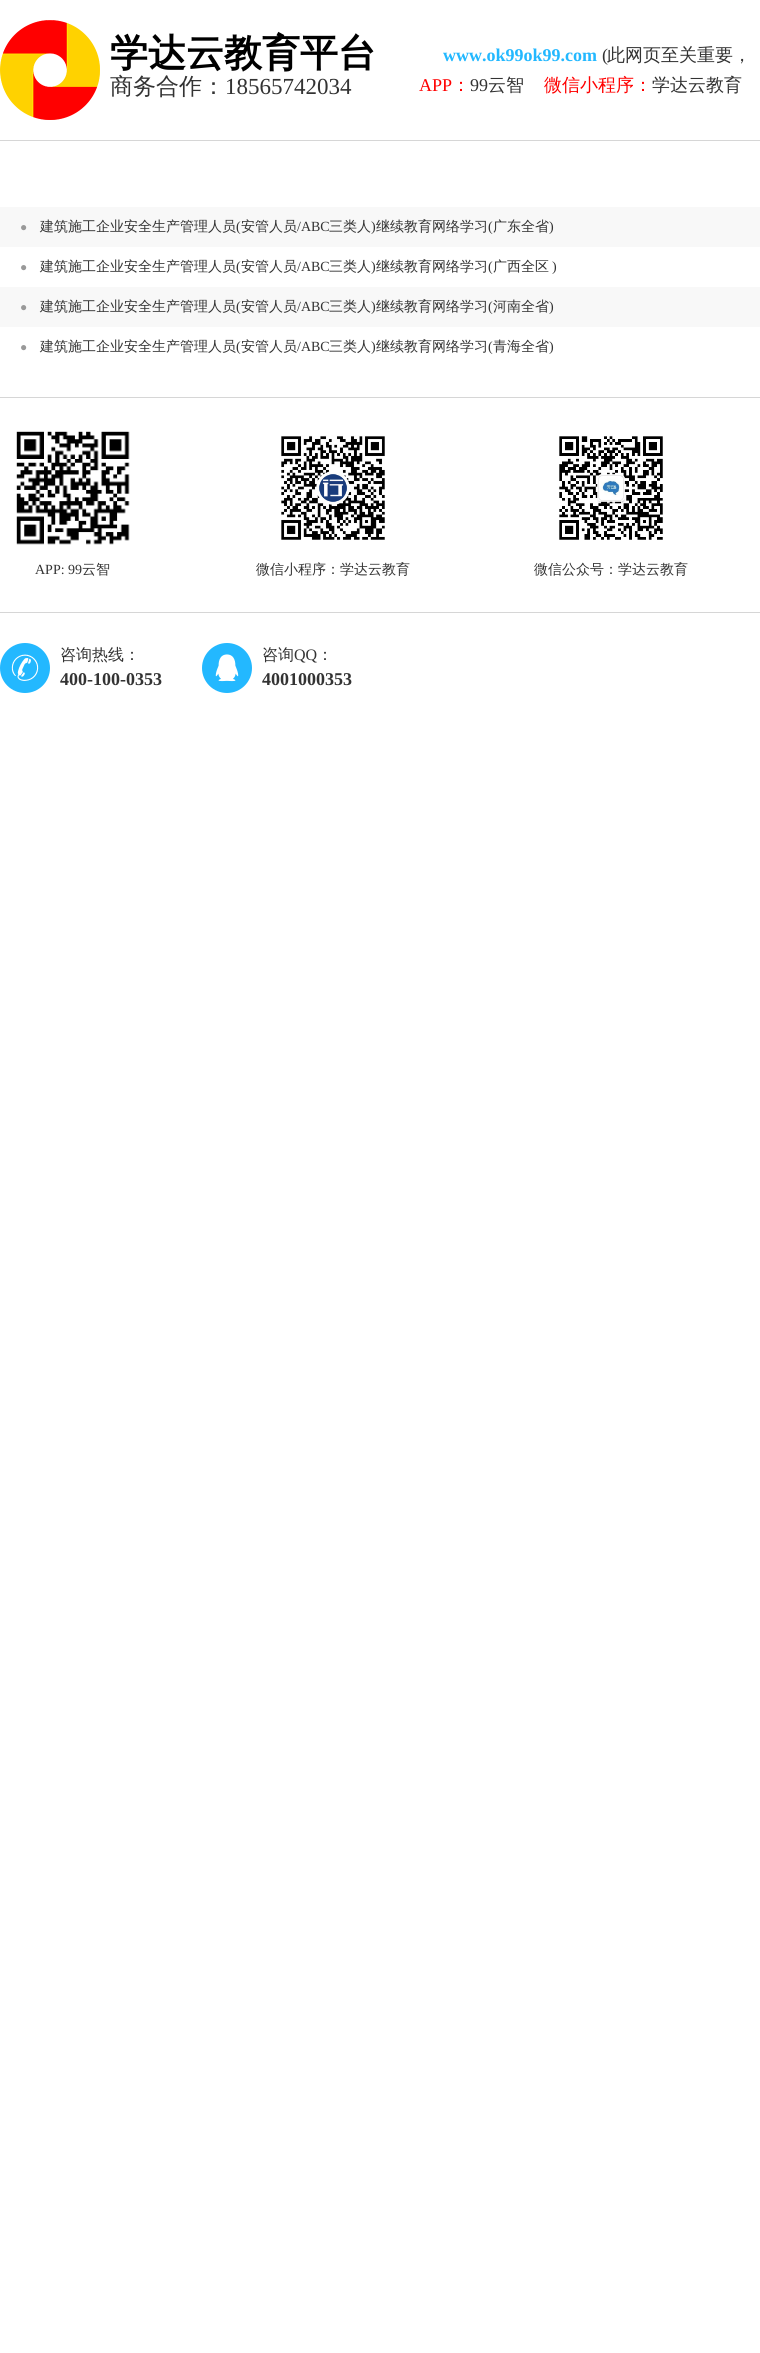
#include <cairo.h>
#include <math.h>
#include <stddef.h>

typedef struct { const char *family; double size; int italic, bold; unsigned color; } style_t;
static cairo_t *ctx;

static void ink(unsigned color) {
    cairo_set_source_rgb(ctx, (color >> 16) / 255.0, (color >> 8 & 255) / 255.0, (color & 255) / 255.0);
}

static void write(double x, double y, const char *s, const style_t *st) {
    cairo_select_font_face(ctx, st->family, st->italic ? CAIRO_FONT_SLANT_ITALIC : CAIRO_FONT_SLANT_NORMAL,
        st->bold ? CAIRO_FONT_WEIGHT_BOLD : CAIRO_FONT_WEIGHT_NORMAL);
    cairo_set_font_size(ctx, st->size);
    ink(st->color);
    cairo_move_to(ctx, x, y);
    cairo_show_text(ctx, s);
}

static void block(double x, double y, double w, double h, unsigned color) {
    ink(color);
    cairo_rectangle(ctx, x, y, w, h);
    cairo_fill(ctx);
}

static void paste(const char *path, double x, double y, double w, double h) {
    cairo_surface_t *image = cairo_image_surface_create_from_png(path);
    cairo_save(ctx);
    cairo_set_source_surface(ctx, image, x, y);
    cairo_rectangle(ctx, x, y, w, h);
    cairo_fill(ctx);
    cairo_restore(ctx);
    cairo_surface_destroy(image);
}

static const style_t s1 = {"WenQuanYi Zen Hei", 38, 0, 1, 0x000000};
static const style_t s2 = {"WenQuanYi Zen Hei Medium", 23, 0, 0, 0x333333};
static const style_t s3 = {"Liberation Serif", 23, 0, 0, 0x333333};
static const style_t s4 = {"Liberation Serif", 18, 0, 1, 0x23b8ff};
static const style_t s5 = {"Liberation Serif", 18, 0, 0, 0x333333};
static const style_t s6 = {"WenQuanYi Zen Hei Medium", 18, 0, 0, 0x333333};
static const style_t s7 = {"Liberation Serif", 18, 0, 0, 0xff0000};
static const style_t s8 = {"WenQuanYi Zen Hei Medium", 18, 0, 0, 0xff0000};
static const style_t s9 = {"Liberation Serif", 12, 0, 0, 0x999999};
static const style_t s10 = {"WenQuanYi Zen Hei Medium", 14, 0, 0, 0x333333};
static const style_t s11 = {"Liberation Serif", 14, 0, 0, 0x333333};
static const style_t s12 = {"WenQuanYi Zen Hei Medium", 16, 0, 0, 0x333333};
static const style_t s13 = {"Liberation Serif", 18, 0, 1, 0x333333};
static const style_t s14 = {"Liberation Serif", 16, 0, 0, 0x333333};

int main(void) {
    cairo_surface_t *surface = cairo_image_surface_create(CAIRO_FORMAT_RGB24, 760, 2353);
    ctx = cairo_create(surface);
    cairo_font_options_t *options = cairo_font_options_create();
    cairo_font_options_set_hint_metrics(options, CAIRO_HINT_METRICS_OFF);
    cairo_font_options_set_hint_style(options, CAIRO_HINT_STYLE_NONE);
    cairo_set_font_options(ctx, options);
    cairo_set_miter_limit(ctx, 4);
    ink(0xffffff);
    cairo_paint(ctx);
    block(0, 140, 760, 1, 0xd6d6d6);
    paste("pic1.png", 0, 20, 100, 100);
    write(110, 66, "学达云教育平台", &s1);
    write(110, 94, "商务合作：", &s2);
    write(225, 94, "18565742034", &s3);
    write(443, 61, "www.ok99ok99.com", &s4);
    write(602, 61, "(", &s5);
    write(607, 61, "此网页至关重要，", &s6);
    write(419, 91, "APP", &s7);
    write(452, 91, "：", &s8);
    write(470, 91, "99", &s5);
    write(488, 91, "云智", &s6);
    write(544, 91, "微信小程序：", &s8);
    write(652, 91, "学达云教育", &s6);
    block(0, 207, 760, 40, 0xf8f8f8);
    write(20, 231, "●", &s9);
    write(40, 231, "建筑施工企业安全生产管理人员", &s10);
    write(236, 231, "(", &s11);
    write(241, 231, "安管人员", &s10);
    write(297, 231, "/ABC", &s11);
    write(329, 231, "三类人", &s10);
    write(371, 231, ")", &s11);
    write(376, 231, "继续教育网络学习", &s10);
    write(488, 231, "(", &s11);
    write(493, 231, "广东全省", &s10);
    write(549, 231, ")", &s11);
    write(20, 271, "●", &s9);
    write(40, 271, "建筑施工企业安全生产管理人员", &s10);
    write(236, 271, "(", &s11);
    write(241, 271, "安管人员", &s10);
    write(297, 271, "/ABC", &s11);
    write(329, 271, "三类人", &s10);
    write(371, 271, ")", &s11);
    write(376, 271, "继续教育网络学习", &s10);
    write(488, 271, "(", &s11);
    write(493, 271, "广西全区", &s10);
    write(552, 271, ")", &s11);
    block(0, 287, 760, 40, 0xf8f8f8);
    write(20, 311, "●", &s9);
    write(40, 311, "建筑施工企业安全生产管理人员", &s10);
    write(236, 311, "(", &s11);
    write(241, 311, "安管人员", &s10);
    write(297, 311, "/ABC", &s11);
    write(329, 311, "三类人", &s10);
    write(371, 311, ")", &s11);
    write(376, 311, "继续教育网络学习", &s10);
    write(488, 311, "(", &s11);
    write(493, 311, "河南全省", &s10);
    write(549, 311, ")", &s11);
    write(20, 351, "●", &s9);
    write(40, 351, "建筑施工企业安全生产管理人员", &s10);
    write(236, 351, "(", &s11);
    write(241, 351, "安管人员", &s10);
    write(297, 351, "/ABC", &s11);
    write(329, 351, "三类人", &s10);
    write(371, 351, ")", &s11);
    write(376, 351, "继续教育网络学习", &s10);
    write(488, 351, "(", &s11);
    write(493, 351, "青海全省", &s10);
    write(549, 351, ")", &s11);
    block(0, 397, 760, 1, 0xd6d6d6);
    paste("pic2.png", 16, 431, 114, 114);
    write(35, 574, "APP: 99", &s11);
    write(82, 574, "云智", &s10);
    paste("pic3.png", 281, 435, 104, 105);
    write(256, 574, "微信小程序：学达云教育", &s10);
    paste("pic4.png", 559, 436, 104, 104);
    write(534, 574, "微信公众号：学达云教育", &s10);
    block(0, 612, 760, 1, 0xd6d6d6);
    ink(0x23b8ff);
    cairo_new_path(ctx);
    cairo_arc(ctx, 25, 668, 25, 0, 2 * M_PI);
    cairo_fill(ctx);
    paste("pic5.png", 11, 654, 28, 27);
    write(60, 660, "咨询热线：", &s12);
    write(60, 685, "400-100-0353", &s13);
    ink(0x23b8ff);
    cairo_new_path(ctx);
    cairo_arc(ctx, 227, 668, 25, 0, 2 * M_PI);
    cairo_fill(ctx);
    paste("pic6.png", 215, 654, 24, 28);
    write(262, 660, "咨询", &s12);
    write(294, 660, "QQ", &s14);
    write(317, 660, "：", &s12);
    write(262, 685, "4001000353", &s13);
    cairo_surface_write_to_png(surface, "screenshot.png");
    cairo_font_options_destroy(options);
    cairo_destroy(ctx);
    cairo_surface_destroy(surface);
    return 0;
}
